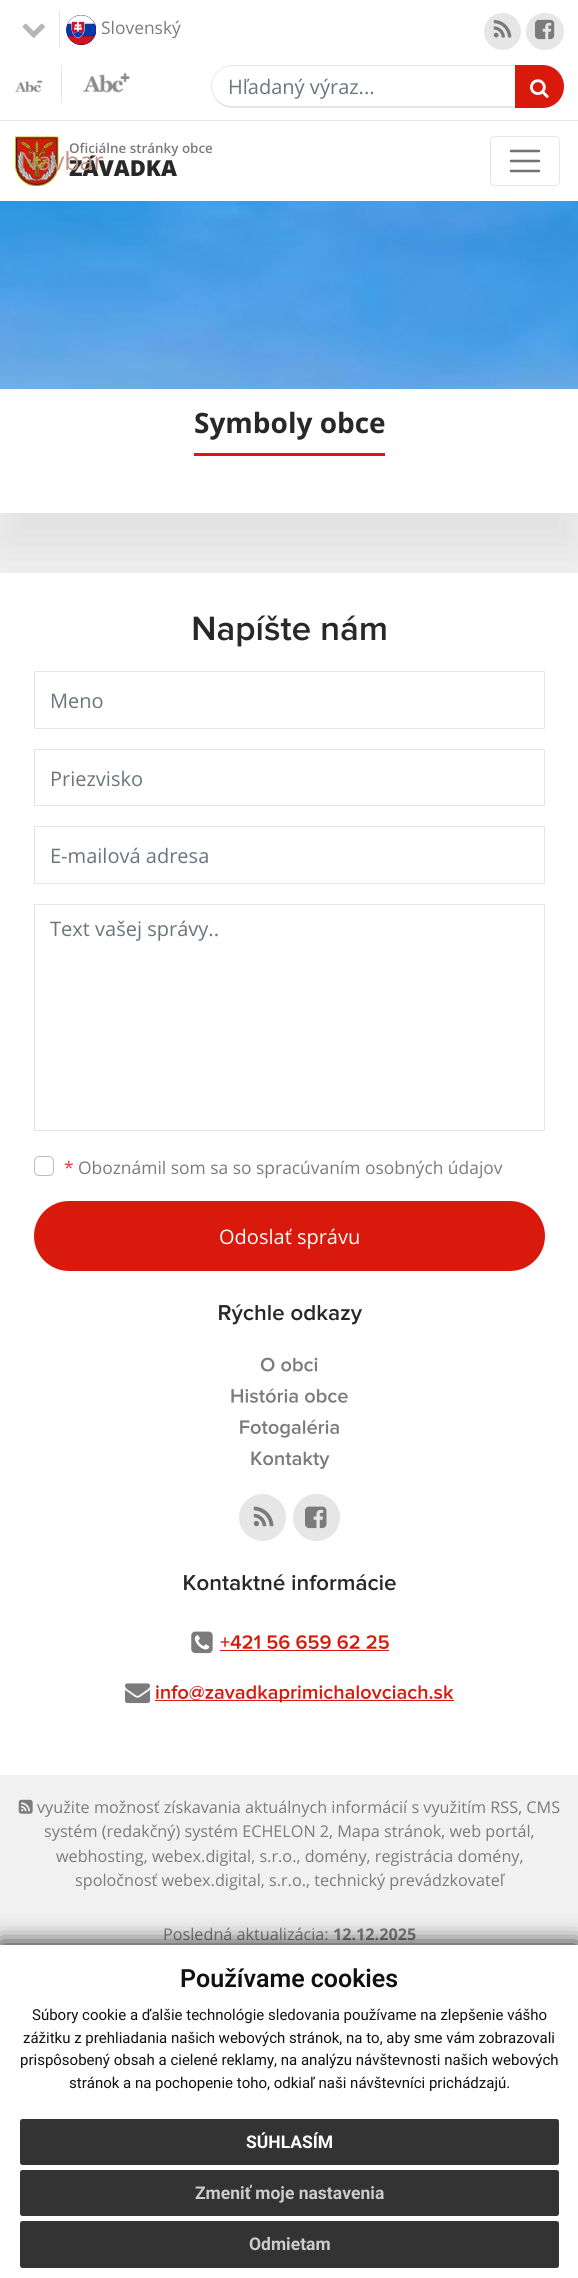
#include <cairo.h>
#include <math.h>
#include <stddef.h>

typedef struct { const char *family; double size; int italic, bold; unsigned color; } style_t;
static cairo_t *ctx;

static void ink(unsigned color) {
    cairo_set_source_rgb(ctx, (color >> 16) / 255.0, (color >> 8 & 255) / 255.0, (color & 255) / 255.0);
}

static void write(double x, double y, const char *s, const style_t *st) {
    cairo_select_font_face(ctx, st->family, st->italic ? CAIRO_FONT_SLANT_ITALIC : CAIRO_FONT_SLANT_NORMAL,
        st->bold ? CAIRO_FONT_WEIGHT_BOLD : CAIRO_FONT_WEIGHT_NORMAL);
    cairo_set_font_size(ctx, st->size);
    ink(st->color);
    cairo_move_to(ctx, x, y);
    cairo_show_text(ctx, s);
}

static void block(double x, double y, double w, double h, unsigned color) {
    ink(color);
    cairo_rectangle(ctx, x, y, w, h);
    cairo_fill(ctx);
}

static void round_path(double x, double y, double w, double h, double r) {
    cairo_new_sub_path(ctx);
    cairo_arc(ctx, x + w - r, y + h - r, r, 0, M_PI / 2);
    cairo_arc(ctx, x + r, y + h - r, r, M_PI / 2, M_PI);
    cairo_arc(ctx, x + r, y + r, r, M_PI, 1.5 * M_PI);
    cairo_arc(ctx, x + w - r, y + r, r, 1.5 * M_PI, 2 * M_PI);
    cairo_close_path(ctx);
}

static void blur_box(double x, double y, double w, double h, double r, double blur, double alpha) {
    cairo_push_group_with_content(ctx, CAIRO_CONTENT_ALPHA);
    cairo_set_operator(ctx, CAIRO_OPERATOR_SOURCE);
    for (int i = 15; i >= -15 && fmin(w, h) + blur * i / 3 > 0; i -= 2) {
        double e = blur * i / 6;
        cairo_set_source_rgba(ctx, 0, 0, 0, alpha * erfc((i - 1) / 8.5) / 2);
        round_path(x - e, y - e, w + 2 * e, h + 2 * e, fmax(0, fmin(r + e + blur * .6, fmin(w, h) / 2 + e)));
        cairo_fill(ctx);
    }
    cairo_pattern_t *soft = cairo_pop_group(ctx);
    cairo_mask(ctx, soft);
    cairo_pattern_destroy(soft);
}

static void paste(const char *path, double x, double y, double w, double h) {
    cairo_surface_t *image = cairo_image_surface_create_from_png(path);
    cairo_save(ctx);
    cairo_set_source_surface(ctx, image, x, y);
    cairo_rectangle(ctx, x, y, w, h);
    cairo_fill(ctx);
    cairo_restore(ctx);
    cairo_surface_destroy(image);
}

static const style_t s1 = {"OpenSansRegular", 17.4, 0, 0, 0x7b7b7b};
static const style_t s2 = {"OpenSansRegular", 20, 0, 0, 0x6c757d};
static const style_t s3 = {"Open Sans ExtraBold", 22, 0, 0, 0x282828};
static const style_t s4 = {"OpenSansRegular", 25, 0, 0, 0xbe9482};
static const style_t s5 = {"Open Sans SemiBold", 13.4, 0, 0, 0x7b7b7b};
static const style_t s6 = {"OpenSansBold", 28, 0, 1, 0x282828};
static const style_t s7 = {"OpenSansRegular", 17.4, 0, 0, 0xdc3545};
static const style_t s8 = {"OpenSansRegular", 20, 0, 0, 0xffffff};
static const style_t s9 = {"OpenSansRegular", 16.2, 0, 0, 0x7b7b7b};
static const style_t s10 = {"OpenSansBold", 16.2, 0, 1, 0x7b7b7b};
static const style_t s11 = {"Roboto SemiBold", 25, 0, 0, 0x111111};
static const style_t s12 = {"Roboto", 15, 0, 0, 0x111111};
static const style_t s13 = {"Roboto", 17.5, 0, 1, 0xffffff};
static const style_t s14 = {"Roboto", 17.5, 0, 1, 0xcccccc};

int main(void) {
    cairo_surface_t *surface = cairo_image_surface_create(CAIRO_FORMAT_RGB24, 578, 2278);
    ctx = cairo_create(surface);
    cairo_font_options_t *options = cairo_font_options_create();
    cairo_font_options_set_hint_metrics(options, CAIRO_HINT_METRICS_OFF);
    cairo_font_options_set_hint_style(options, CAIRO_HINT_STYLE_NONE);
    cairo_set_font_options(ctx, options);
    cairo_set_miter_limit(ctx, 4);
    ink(0xf1f1f1);
    cairo_paint(ctx);
    block(0, 0, 578, 120, 0xffffff);
    block(59, 10, 1, 38, 0xe6e6e6);
    paste("pic1.png", 22, 23, 23, 15);
    paste("pic2.png", 66, 15, 30, 30);
    write(101, 34, "Slovenský", &s1);
    ink(0xe6e6e6);
    cairo_new_path(ctx);
    cairo_arc(ctx, 502.5, 31.5, 18.5, 0, 2 * M_PI);
    cairo_fill(ctx);
    paste("pic3.png", 493, 19, 19, 19);
    round_path(526, 13, 38, 37, 18.5);
    cairo_fill(ctx);
    paste("pic4.png", 535, 19, 20, 21);
    paste("pic5.png", 15, 80, 28, 13);
    block(61, 65, 1, 38, 0xe6e6e6);
    paste("pic6.png", 82, 72, 48, 21);
    cairo_set_fill_rule(ctx, CAIRO_FILL_RULE_EVEN_ODD);
    cairo_new_path(ctx);
    cairo_move_to(ctx, 232, 65);
    cairo_line_to(ctx, 515, 65);
    cairo_line_to(ctx, 515, 108);
    cairo_line_to(ctx, 232, 108);
    cairo_curve_to(ctx, 221, 108, 211, 98, 211, 86);
    cairo_curve_to(ctx, 211, 75, 221, 65, 232, 65);
    cairo_close_path(ctx);
    cairo_move_to(ctx, 232, 66);
    cairo_line_to(ctx, 515, 66);
    cairo_line_to(ctx, 515, 106);
    cairo_line_to(ctx, 232, 106);
    cairo_curve_to(ctx, 221, 106, 212, 97, 212, 86);
    cairo_curve_to(ctx, 212, 75, 221, 66, 232, 66);
    cairo_close_path(ctx);
    cairo_fill(ctx);
    write(228, 94, "Hľadaný výraz...", &s2);
    ink(0xd9190c);
    cairo_new_path(ctx);
    cairo_move_to(ctx, 515, 65);
    cairo_line_to(ctx, 542.5, 65);
    cairo_curve_to(ctx, 554.5, 65, 564, 74.5, 564, 86.5);
    cairo_curve_to(ctx, 564, 98.5, 554.5, 108, 542.5, 108);
    cairo_line_to(ctx, 515, 108);
    cairo_close_path(ctx);
    cairo_fill(ctx);
    paste("pic7.png", 530, 79, 19, 19);
    block(0, 121, 578, 80, 0xffffff);
    block(0, 120, 578, 1, 0xe6e6e6);
    paste("pic8.png", 15, 136, 44, 50);
    write(69, 176, "ZÁVADKA", &s3);
    write(19, 170, "Navbar", &s4);
    round_path(490.5, 136.5, 69, 49, 4.5);
    ink(0xe6e6e6);
    cairo_set_line_width(ctx, 1);
    cairo_stroke(ctx);
    cairo_new_path(ctx);
    cairo_move_to(ctx, 511, 151);
    cairo_line_to(ctx, 539, 151);
    cairo_move_to(ctx, 511, 161);
    cairo_line_to(ctx, 539, 161);
    cairo_move_to(ctx, 511, 171);
    cairo_line_to(ctx, 539, 171);
    ink(0x737373);
    cairo_set_line_width(ctx, 2.5);
    cairo_set_line_cap(ctx, CAIRO_LINE_CAP_ROUND);
    cairo_stroke(ctx);
    write(69, 153, "Oficiálne stránky obce", &s5);
    paste("pic9.png", 0, 201, 578, 188);
    ink(0x000000);
    blur_box(0, 426, 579, 124, 0, 25, 0.07);
    block(0, 389, 578, 124, 0xffffff);
    block(194, 453, 191, 3, 0xd9190c);
    write(194, 433, "Symboly obce", &s6);
    block(0, 573, 578, 1202, 0xffffff);
    paste("pic10.png", 193, 615, 193, 32);
    cairo_rectangle(ctx, 34.5, 671.5, 510, 57);
    ink(0xe6e6e6);
    cairo_set_line_width(ctx, 1);
    cairo_set_line_cap(ctx, CAIRO_LINE_CAP_BUTT);
    cairo_stroke(ctx);
    write(50, 708, "Meno", &s2);
    cairo_rectangle(ctx, 34.5, 749.5, 510, 56);
    ink(0xe6e6e6);
    cairo_stroke(ctx);
    write(50, 786, "Priezvisko", &s2);
    cairo_rectangle(ctx, 34.5, 826.5, 510, 57);
    ink(0xe6e6e6);
    cairo_stroke(ctx);
    write(50, 863, "E-mailová adresa", &s2);
    cairo_rectangle(ctx, 34.5, 904.5, 510, 226);
    ink(0xe6e6e6);
    cairo_stroke(ctx);
    write(50, 936, "Text vašej správy..", &s2);
    round_path(34.5, 1156.5, 19, 19, 4.5);
    ink(0xbfbfbf);
    cairo_stroke(ctx);
    write(64, 1174, "*", &s7);
    write(78, 1174, "Oboznámil som sa so spracúvaním osobných údajov", &s1);
    ink(0xd9190c);
    round_path(34, 1201, 511, 70, 35);
    cairo_fill(ctx);
    write(219, 1244, "Odoslať správu", &s8);
    paste("pic11.png", 219, 1304, 143, 21);
    paste("pic12.png", 260, 1357, 58, 15);
    paste("pic13.png", 231, 1388, 117, 15);
    paste("pic14.png", 240, 1419, 99, 19);
    paste("pic15.png", 251, 1451, 79, 18);
    ink(0xe6e6e6);
    cairo_arc(ctx, 262.5, 1517.5, 23.5, 0, 2 * M_PI);
    cairo_fill(ctx);
    paste("pic16.png", 253, 1506, 21, 21);
    cairo_arc(ctx, 316.5, 1517.5, 23.5, 0, 2 * M_PI);
    cairo_fill(ctx);
    paste("pic17.png", 305, 1506, 22, 23);
    paste("pic18.png", 184, 1574, 212, 17);
    paste("pic19.png", 191, 1631, 22, 23);
    paste("pic20.png", 220, 1635, 169, 14);
    block(220, 1650, 169, 1, 0xd9190c);
    paste("pic21.png", 125, 1683, 25, 21);
    block(155, 1700, 299, 1, 0xd9190c);
    paste("pic22.png", 156, 1685, 298, 18);
    paste("pic23.png", 18, 1799, 15, 15);
    write(37, 1813, "využite možnosť získavania aktuálnych informácií s využitím RSS, CMS", &s9);
    write(44, 1837, "systém (redakčný) systém ECHELON 2, Mapa stránok, web portál,", &s9);
    write(56, 1862, "webhosting, webex.digital, s.r.o., domény, registrácia domény,", &s9);
    write(75, 1886, "spoločnosť webex.digital, s.r.o., technický prevádzkovateľ", &s9);
    write(163, 1940, "Posledná aktualizácia:", &s9);
    write(333, 1940, "12.12.2025", &s10);
    ink(0x111111);
    blur_box(0, 1945, 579, 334, 0, 12.5, 1);
    block(0, 1945, 578, 333, 0xffffff);
    write(180, 1987, "Používame cookies", &s11);
    write(32, 2020, "Súbory cookie a ďalšie technológie sledovania používame na zlepšenie vášho", &s12);
    write(23, 2043, "zážitku z prehliadania našich webových stránok, na to, aby sme vám zobrazovali", &s12);
    write(20, 2065, "prispôsobený obsah a cielené reklamy, na analýzu návštevnosti našich webových", &s12);
    write(69, 2088, "stránok a na pochopenie toho, odkiaľ naši návštevníci prichádzajú.", &s12);
    ink(0x333333);
    round_path(20, 2119, 539, 46, 2.5);
    cairo_fill(ctx);
    write(246, 2148, "SÚHLASÍM", &s13);
    ink(0x333333);
    round_path(20, 2170, 539, 46, 2.5);
    cairo_fill(ctx);
    write(195, 2199, "Zmeniť moje nastavenia", &s14);
    ink(0x333333);
    round_path(20, 2221, 539, 47, 2.5);
    cairo_fill(ctx);
    write(249, 2250, "Odmietam", &s14);
    cairo_surface_write_to_png(surface, "screenshot.png");
    cairo_font_options_destroy(options);
    cairo_destroy(ctx);
    cairo_surface_destroy(surface);
    return 0;
}
